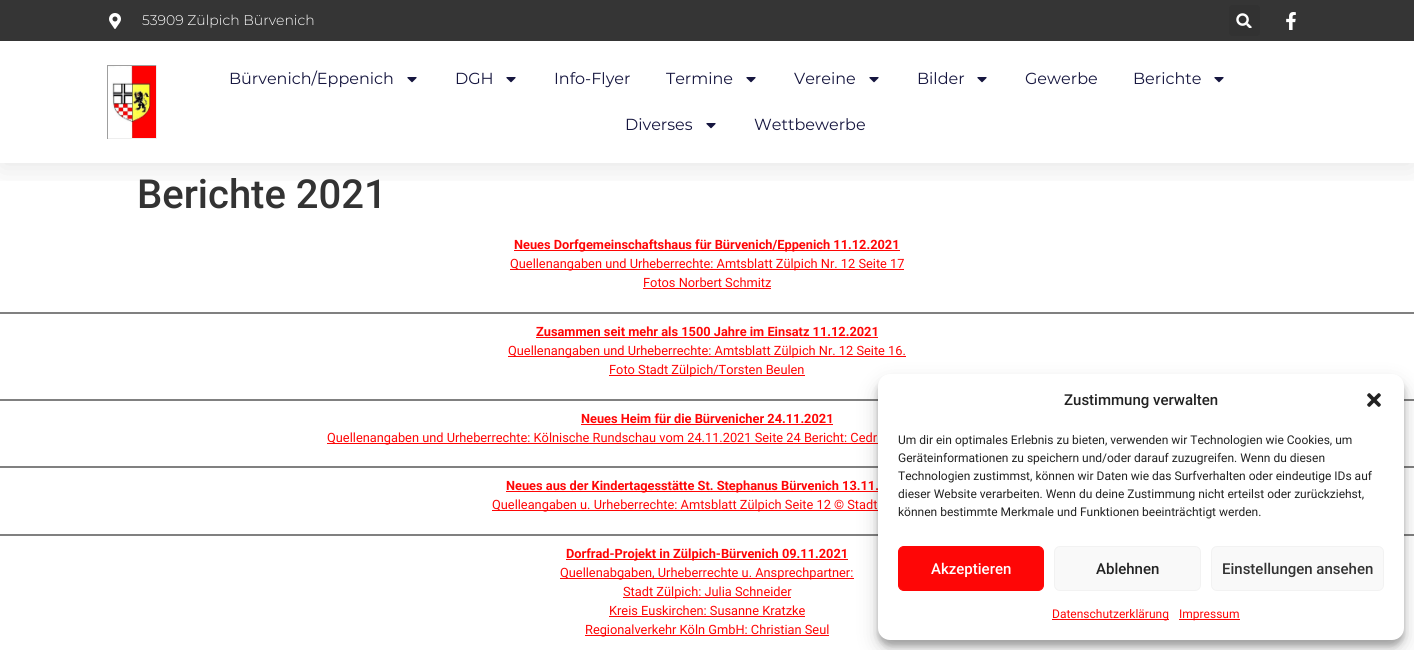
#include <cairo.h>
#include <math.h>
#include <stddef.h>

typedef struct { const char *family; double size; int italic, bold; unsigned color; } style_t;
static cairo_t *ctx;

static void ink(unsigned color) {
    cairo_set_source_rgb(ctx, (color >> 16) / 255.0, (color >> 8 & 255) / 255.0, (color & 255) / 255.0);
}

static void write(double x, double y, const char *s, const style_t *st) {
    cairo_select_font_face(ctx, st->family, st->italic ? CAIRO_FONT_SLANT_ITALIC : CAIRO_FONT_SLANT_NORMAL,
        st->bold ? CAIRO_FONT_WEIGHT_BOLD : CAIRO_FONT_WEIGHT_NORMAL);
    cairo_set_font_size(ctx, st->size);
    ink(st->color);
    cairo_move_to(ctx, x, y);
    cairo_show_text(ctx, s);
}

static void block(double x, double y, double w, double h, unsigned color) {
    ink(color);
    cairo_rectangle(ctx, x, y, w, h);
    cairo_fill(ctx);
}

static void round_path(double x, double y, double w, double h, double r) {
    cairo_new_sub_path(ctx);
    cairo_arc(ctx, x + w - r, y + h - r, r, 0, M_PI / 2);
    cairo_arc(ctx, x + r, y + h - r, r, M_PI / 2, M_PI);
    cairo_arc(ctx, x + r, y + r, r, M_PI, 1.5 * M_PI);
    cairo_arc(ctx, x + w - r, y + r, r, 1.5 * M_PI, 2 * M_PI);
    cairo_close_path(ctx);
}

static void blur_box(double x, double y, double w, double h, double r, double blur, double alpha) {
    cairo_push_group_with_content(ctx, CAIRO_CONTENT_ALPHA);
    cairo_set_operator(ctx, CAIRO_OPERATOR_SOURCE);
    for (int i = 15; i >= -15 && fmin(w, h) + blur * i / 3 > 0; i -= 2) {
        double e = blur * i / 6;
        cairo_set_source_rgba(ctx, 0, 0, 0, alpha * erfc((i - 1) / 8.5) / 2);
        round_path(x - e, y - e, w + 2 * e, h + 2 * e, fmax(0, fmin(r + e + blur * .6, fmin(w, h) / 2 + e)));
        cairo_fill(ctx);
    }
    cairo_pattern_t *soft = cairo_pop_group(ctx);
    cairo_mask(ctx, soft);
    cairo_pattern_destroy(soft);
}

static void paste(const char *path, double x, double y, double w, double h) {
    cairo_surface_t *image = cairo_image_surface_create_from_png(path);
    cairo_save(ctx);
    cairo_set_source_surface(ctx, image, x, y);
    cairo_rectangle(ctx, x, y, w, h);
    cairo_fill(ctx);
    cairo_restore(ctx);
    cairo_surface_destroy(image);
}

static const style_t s1 = {"Montserrat Light", 14, 0, 0, 0xffffff};
static const style_t s2 = {"Montserrat", 16, 0, 0, 0x16163f};
static const style_t s3 = {"Roboto Medium", 40, 0, 0, 0x333333};
static const style_t s4 = {"Roboto", 12.8, 0, 1, 0xfe0606};
static const style_t s5 = {"Roboto", 12.8, 0, 0, 0xfe0606};
static const style_t s6 = {"Roboto Medium", 15, 0, 0, 0x222222};
static const style_t s7 = {"Roboto", 12, 0, 0, 0x222222};
static const style_t s8 = {"Roboto Medium", 15, 0, 0, 0xffffff};
static const style_t s9 = {"Roboto Medium", 15, 0, 0, 0x333333};
static const style_t s10 = {"Roboto", 12, 0, 0, 0xfe0606};

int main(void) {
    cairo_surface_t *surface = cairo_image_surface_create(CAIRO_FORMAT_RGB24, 1414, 650);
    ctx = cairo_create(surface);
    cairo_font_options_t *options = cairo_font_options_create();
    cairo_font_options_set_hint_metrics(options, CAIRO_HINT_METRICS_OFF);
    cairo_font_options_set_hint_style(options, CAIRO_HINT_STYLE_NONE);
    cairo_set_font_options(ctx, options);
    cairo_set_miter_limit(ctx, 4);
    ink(0xffffff);
    cairo_paint(ctx);
    cairo_save(ctx);
    cairo_rectangle(ctx, 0, 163, 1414, 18);
    cairo_clip(ctx);
    ink(0x000000);
    blur_box(0, 5, 1414, 163, 0, 15, 0.1);
    cairo_restore(ctx);
    block(0, 0, 1414, 41, 0x353535);
    paste("pic1.png", 109, 13, 12, 16);
    write(142, 25, "53909 Zülpich Bürvenich", &s1);
    ink(0x323232);
    round_path(1229, 5, 31, 31, 3);
    cairo_fill(ctx);
    paste("pic2.png", 1236, 13, 16, 15);
    paste("pic3.png", 1286, 12, 10, 18);
    block(107, 65, 50, 1, 0x9f9f9f);
    block(156, 65, 1, 74, 0xeeeeee);
    block(107, 138, 50, 1, 0xeeeeee);
    block(107, 65, 1, 74, 0x9f9f9f);
    paste("pic4.png", 108, 66, 48, 72);
    write(229, 84, "Bürvenich/Eppenich", &s2);
    paste("pic5.png", 407, 77, 10, 6);
    write(455, 84, "DGH", &s2);
    paste("pic5.png", 506, 77, 10, 6);
    write(554, 84, "Info-Flyer", &s2);
    write(666, 84, "Termine", &s2);
    paste("pic5.png", 746, 77, 10, 6);
    write(794, 84, "Vereine", &s2);
    paste("pic5.png", 869, 77, 10, 6);
    write(917, 84, "Bilder", &s2);
    paste("pic5.png", 977, 77, 10, 6);
    write(1025, 84, "Gewerbe", &s2);
    write(1133, 84, "Berichte", &s2);
    paste("pic5.png", 1214, 77, 10, 6);
    write(625, 130, "Diverses", &s2);
    paste("pic5.png", 706, 123, 10, 6);
    write(754, 130, "Wettbewerbe", &s2);
    write(137, 208, "Berichte 2021", &s3);
    block(514, 250, 386, 1, 0xfe0606);
    write(514, 249, "Neues Dorfgemeinschaftshaus für Bürvenich/Eppenich 11.12.2021", &s4);
    block(510, 269, 394, 1, 0xfe0606);
    write(510, 268, "Quellenangaben und Urheberrechte: Amtsblatt Zülpich Nr. 12 Seite 17", &s5);
    write(643, 287, "Fotos Norbert Schmitz", &s5);
    block(643, 288, 128, 1, 0xfe0606);
    block(0, 312, 1414, 2, 0x808080);
    write(536, 336, "Zusammen seit mehr als 1500 Jahre im Einsatz 11.12.2021", &s4);
    block(536, 337, 342, 1, 0xfe0606);
    block(508, 356, 398, 1, 0xfe0606);
    write(508, 355, "Quellenangaben und Urheberrechte: Amtsblatt Zülpich Nr. 12 Seite 16.", &s5);
    block(609, 375, 196, 1, 0xfe0606);
    write(609, 374, "Foto Stadt Zülpich/Torsten Beulen", &s5);
    block(0, 399, 1414, 2, 0x808080);
    write(581, 423, "Neues Heim für die Bürvenicher 24.11.2021", &s4);
    block(581, 424, 252, 1, 0xfe0606);
    block(327, 443, 551, 1, 0xfe0606);
    write(327, 442, "Quellenangaben und Urheberrechte: Kölnische Rundschau vom 24.11.2021 Seite 24 Bericht: Cedr", &s5);
    block(0, 466, 1414, 2, 0x808080);
    block(506, 491, 372, 1, 0xfe0606);
    write(506, 490, "Neues aus der Kindertagesstätte St. Stephanus Bürvenich 13.11.", &s4);
    block(492, 510, 386, 1, 0xfe0606);
    write(492, 509, "Quelleangaben u. Urheberrechte: Amtsblatt Zülpich Seite 12 © Stadt", &s5);
    block(0, 534, 1414, 2, 0x808080);
    block(566, 559, 282, 1, 0xfe0606);
    write(566, 558, "Dorfrad-Projekt in Zülpich-Bürvenich 09.11.2021", &s4);
    block(560, 578, 294, 1, 0xfe0606);
    write(560, 577, "Quellenabgaben, Urheberrechte u. Ansprechpartner:", &s5);
    block(623, 597, 168, 1, 0xfe0606);
    write(623, 596, "Stadt Zülpich: Julia Schneider", &s5);
    write(609, 615, "Kreis Euskirchen: Susanne Kratzke", &s5);
    block(609, 616, 196, 1, 0xfe0606);
    block(585, 635, 244, 1, 0xfe0606);
    write(585, 634, "Regionalverkehr Köln GmbH: Christian Seul", &s5);
    ink(0x000000);
    blur_box(878, 380, 526, 266, 12, 3, 0.23);
    blur_box(878, 384, 526, 266, 12, 10, 0.19);
    ink(0xffffff);
    round_path(878, 374, 526, 266, 12);
    cairo_fill(ctx);
    write(1064, 405, "Zustimmung verwalten", &s6);
    paste("pic6.png", 1367, 393, 14, 14);
    write(898, 444, "Um dir ein optimales Erlebnis zu bieten, verwenden wir Technologien wie Cookies, um", &s7);
    write(898, 462, "Geräteinformationen zu speichern und/oder darauf zuzugreifen. Wenn du diesen", &s7);
    write(898, 480, "Technologien zustimmst, können wir Daten wie das Surfverhalten oder eindeutige IDs auf", &s7);
    write(898, 498, "dieser Website verarbeiten. Wenn du deine Zustimmung nicht erteilst oder zurückziehst,", &s7);
    write(898, 516, "können bestimmte Merkmale und Funktionen beeinträchtigt werden.", &s7);
    ink(0xfe0606);
    round_path(898.5, 546.5, 145, 44, 5.5);
    cairo_fill_preserve(ctx);
    cairo_set_line_width(ctx, 1);
    cairo_stroke(ctx);
    write(931, 574, "Akzeptieren", &s8);
    ink(0xf9f9f9);
    round_path(1054.5, 546.5, 146, 44, 5.5);
    cairo_fill_preserve(ctx);
    ink(0xf2f2f2);
    cairo_stroke(ctx);
    write(1096, 574, "Ablehnen", &s6);
    ink(0xf9f9f9);
    round_path(1211.5, 546.5, 172, 44, 5.5);
    cairo_fill_preserve(ctx);
    ink(0xf2f2f2);
    cairo_stroke(ctx);
    write(1222, 574, "Einstellungen ansehen", &s9);
    block(1052, 619, 117, 1, 0xfe0606);
    write(1052, 618, "Datenschutzerklärung", &s10);
    block(1179, 619, 61, 1, 0xfe0606);
    write(1179, 618, "Impressum", &s10);
    cairo_surface_write_to_png(surface, "screenshot.png");
    cairo_font_options_destroy(options);
    cairo_destroy(ctx);
    cairo_surface_destroy(surface);
    return 0;
}
